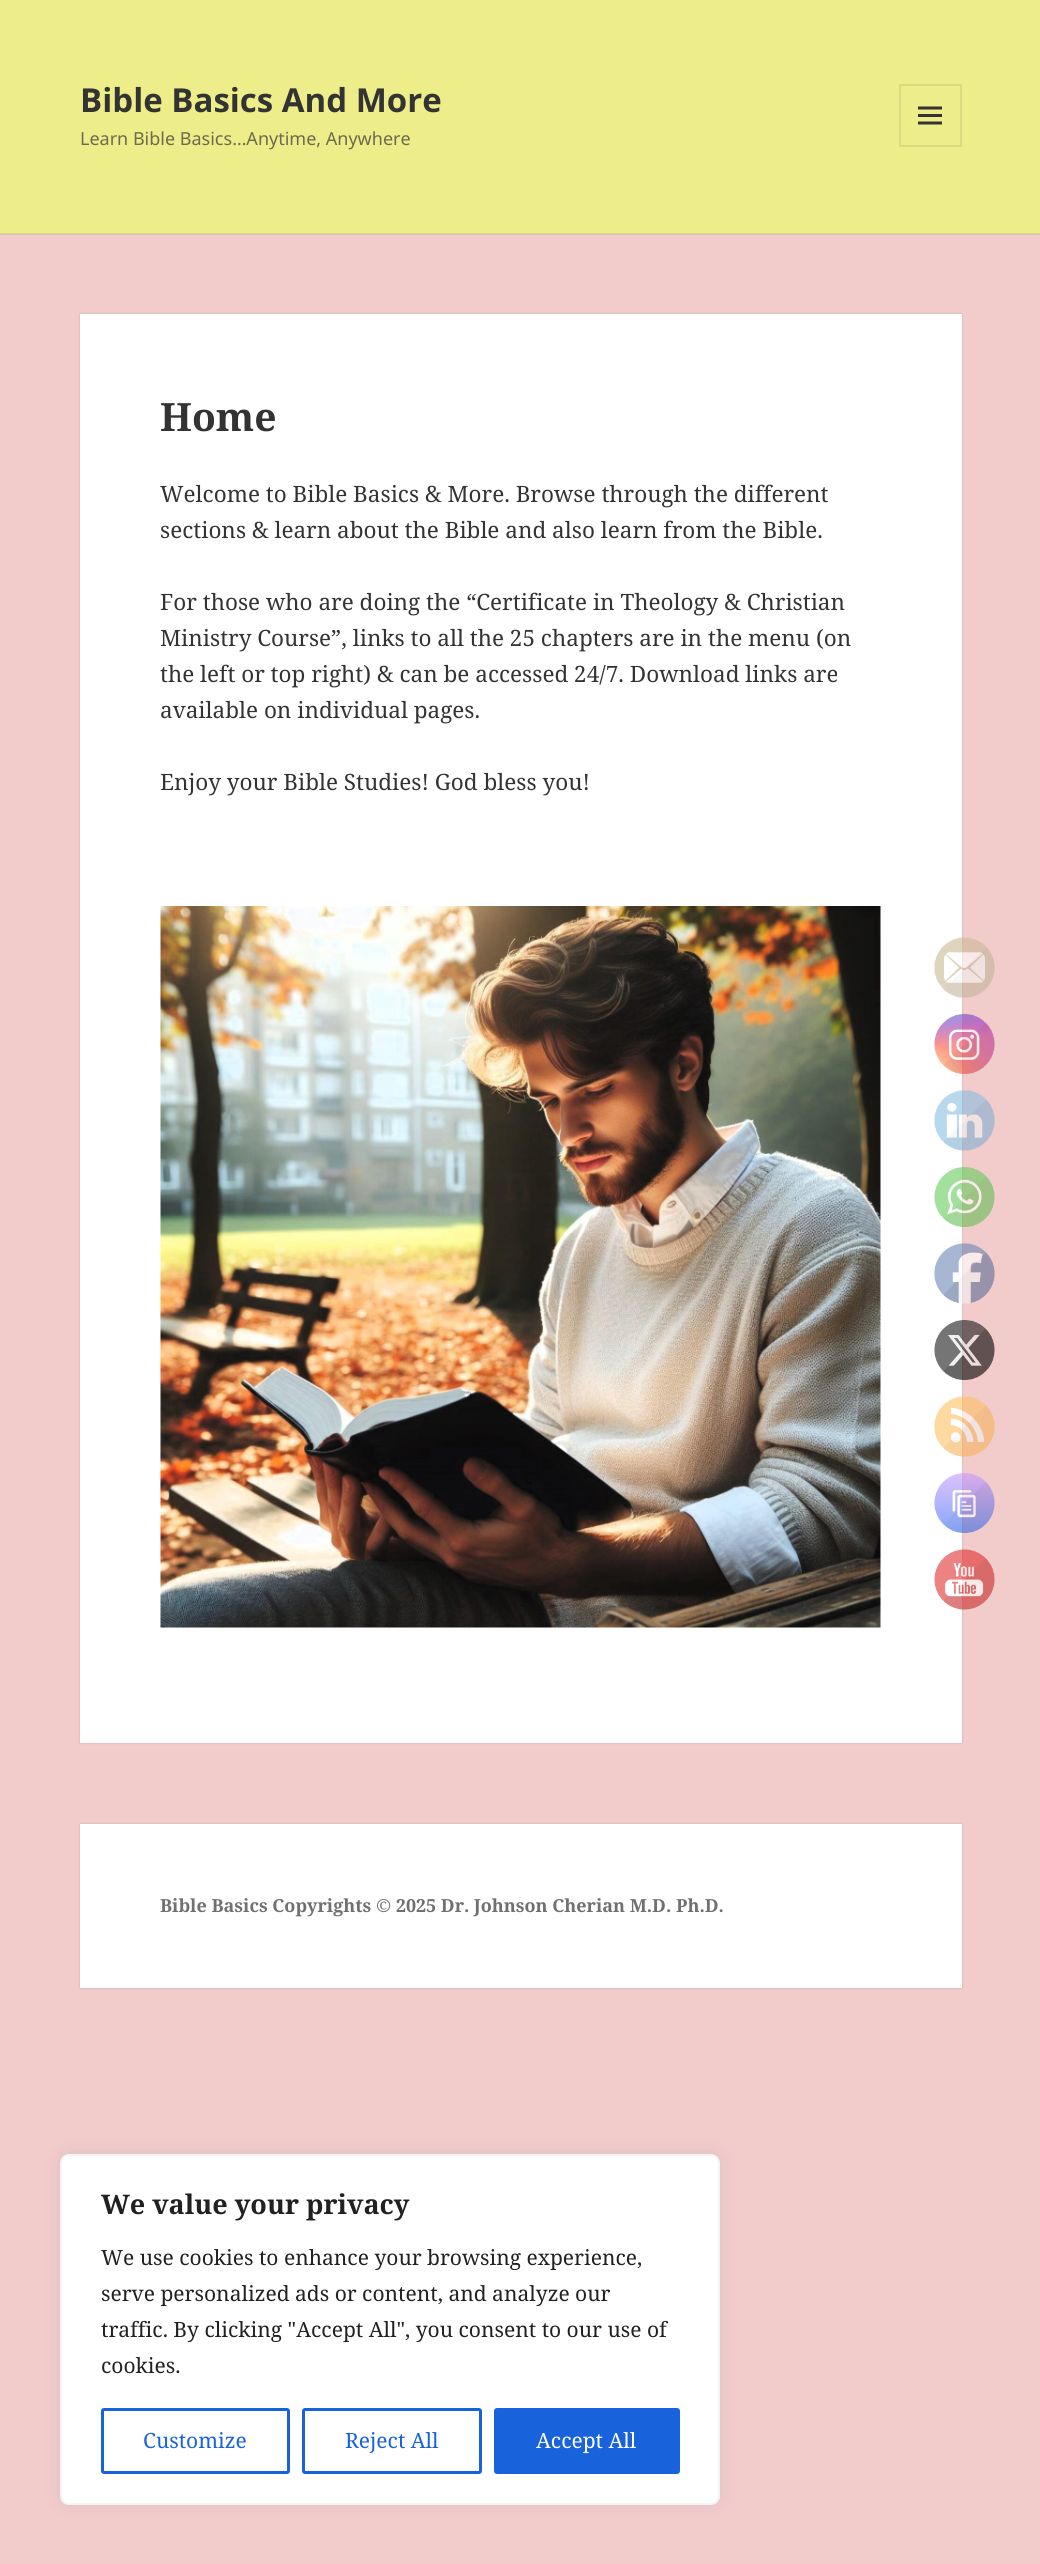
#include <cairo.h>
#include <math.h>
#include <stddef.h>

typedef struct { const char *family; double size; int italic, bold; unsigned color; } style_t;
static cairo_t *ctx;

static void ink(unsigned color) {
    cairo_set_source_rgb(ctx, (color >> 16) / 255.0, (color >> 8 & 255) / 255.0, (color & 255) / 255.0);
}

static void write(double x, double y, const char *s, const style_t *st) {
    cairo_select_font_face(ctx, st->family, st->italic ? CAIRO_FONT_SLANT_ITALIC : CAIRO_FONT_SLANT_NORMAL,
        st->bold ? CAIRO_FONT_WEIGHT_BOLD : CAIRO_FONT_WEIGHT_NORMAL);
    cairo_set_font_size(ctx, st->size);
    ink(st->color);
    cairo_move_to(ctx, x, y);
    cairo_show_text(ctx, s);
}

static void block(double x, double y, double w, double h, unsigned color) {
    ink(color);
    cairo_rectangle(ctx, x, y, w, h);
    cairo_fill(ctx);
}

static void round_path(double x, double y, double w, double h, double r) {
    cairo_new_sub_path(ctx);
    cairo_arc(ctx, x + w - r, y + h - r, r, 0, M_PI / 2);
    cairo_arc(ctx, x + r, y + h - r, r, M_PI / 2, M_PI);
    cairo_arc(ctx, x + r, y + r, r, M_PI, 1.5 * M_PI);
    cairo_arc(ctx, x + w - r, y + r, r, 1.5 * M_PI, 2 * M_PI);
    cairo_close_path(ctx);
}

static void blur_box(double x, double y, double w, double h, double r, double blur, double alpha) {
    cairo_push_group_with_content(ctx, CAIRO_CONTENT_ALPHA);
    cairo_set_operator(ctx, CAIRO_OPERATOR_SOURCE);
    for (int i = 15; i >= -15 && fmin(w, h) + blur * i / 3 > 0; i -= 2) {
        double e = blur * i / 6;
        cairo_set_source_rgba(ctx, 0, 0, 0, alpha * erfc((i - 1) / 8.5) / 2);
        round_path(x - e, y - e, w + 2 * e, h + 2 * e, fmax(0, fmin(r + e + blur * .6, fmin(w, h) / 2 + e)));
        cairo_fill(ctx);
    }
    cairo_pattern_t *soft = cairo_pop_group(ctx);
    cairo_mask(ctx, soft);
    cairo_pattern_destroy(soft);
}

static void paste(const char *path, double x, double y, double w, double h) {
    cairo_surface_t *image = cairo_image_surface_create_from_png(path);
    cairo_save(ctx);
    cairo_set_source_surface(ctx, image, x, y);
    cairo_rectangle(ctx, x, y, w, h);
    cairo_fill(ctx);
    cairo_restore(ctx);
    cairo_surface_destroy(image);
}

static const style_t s1 = {"Noto Sans", 33, 0, 1, 0x333333};
static const style_t s2 = {"Noto Sans", 18, 0, 0, 0x6b6b4d};
static const style_t s3 = {"Noto Serif", 39, 0, 1, 0x333333};
static const style_t s4 = {"Noto Serif", 22.5, 0, 0, 0x333333};
static const style_t s5 = {"Noto Serif", 18, 0, 1, 0x707070};
static const style_t s6 = {"Noto Serif", 27, 0, 1, 0x212121};
static const style_t s7 = {"Noto Serif", 21, 0, 0, 0x212121};
static const style_t s8 = {"Noto Serif", 21, 0, 0, 0x1863dc};
static const style_t s9 = {"Noto Serif", 21, 0, 0, 0xffffff};

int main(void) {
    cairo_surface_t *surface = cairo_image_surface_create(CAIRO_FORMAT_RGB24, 1040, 2564);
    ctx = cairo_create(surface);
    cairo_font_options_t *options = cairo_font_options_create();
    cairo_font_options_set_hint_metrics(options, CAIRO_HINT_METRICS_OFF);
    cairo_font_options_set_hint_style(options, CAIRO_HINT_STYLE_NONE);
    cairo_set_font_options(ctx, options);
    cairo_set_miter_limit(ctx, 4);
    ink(0xf2cbcb);
    cairo_paint(ctx);
    block(0, 234, 1040, 1, 0xdfbcbc);
    block(0, 0, 1040, 233, 0xeded89);
    block(0, 233, 1040, 1, 0xdada80);
    write(80, 112, "Bible Basics And More", &s1);
    cairo_rectangle(ctx, 900, 85, 61, 61);
    ink(0xdada80);
    cairo_stroke(ctx);
    paste("pic1.png", 918, 106, 24, 19);
    write(80, 145, "Learn Bible Basics…Anytime, Anywhere", &s2);
    ink(0x000000);
    blur_box(80, 314, 882, 1429, 0, 1, 0.15);
    block(80, 314, 882, 1429, 0xffffff);
    write(160, 431, "Home", &s3);
    write(160, 502, "Welcome to Bible Basics & More. Browse through the different", &s4);
    write(160, 538, "sections & learn about the Bible and also learn from the Bible.", &s4);
    write(160, 610, "For those who are doing the “Certificate in Theology & Christian", &s4);
    write(160, 646, "Ministry Course”, links to all the 25 chapters are in the menu (on", &s4);
    write(160, 682, "the left or top right) & can be accessed 24/7. Download links are", &s4);
    write(160, 718, "available on individual pages.", &s4);
    write(160, 790, "Enjoy your Bible Studies! God bless you!", &s4);
    paste("pic2.png", 160, 906, 721, 722);
    ink(0x000000);
    blur_box(80, 1824, 882, 164, 0, 1, 0.15);
    block(80, 1824, 882, 164, 0xffffff);
    write(160, 1912, "Bible Basics Copyrights © 2025 Dr. Johnson Cherian M.D. Ph.D.", &s5);
    paste("pic3.png", 934, 937, 61, 61);
    paste("pic4.png", 934, 1014, 61, 60);
    paste("pic5.png", 934, 1090, 61, 61);
    paste("pic6.png", 934, 1167, 61, 60);
    paste("pic7.png", 934, 1243, 61, 61);
    paste("pic8.png", 934, 1320, 61, 60);
    paste("pic9.png", 934, 1396, 61, 61);
    paste("pic10.png", 934, 1473, 61, 60);
    paste("pic11.png", 934, 1549, 61, 61);
    ink(0xacabab);
    blur_box(60, 2153, 660, 351, 9, 7.5, 0.3);
    ink(0xffffff);
    round_path(61, 2155, 658, 349, 8);
    cairo_fill_preserve(ctx);
    ink(0xf4f4f4);
    cairo_stroke(ctx);
    write(101, 2214, "We value your privacy", &s6);
    write(101, 2265, "We use cookies to enhance your browsing experience,", &s7);
    write(101, 2301, "serve personalized ads or content, and analyze our", &s7);
    write(101, 2337, "traffic. By clicking \"Accept All\", you consent to our use of", &s7);
    write(101, 2373, "cookies.", &s7);
    round_path(102.5, 2409.5, 186, 63, 1.5);
    ink(0x1863dc);
    cairo_set_line_width(ctx, 3);
    cairo_stroke(ctx);
    write(143, 2448, "Customize", &s8);
    round_path(303.5, 2409.5, 177, 63, 1.5);
    cairo_stroke(ctx);
    write(345, 2448, "Reject All", &s8);
    round_path(495.5, 2409.5, 183, 63, 1.5);
    cairo_fill_preserve(ctx);
    cairo_stroke(ctx);
    write(536, 2448, "Accept All", &s9);
    cairo_surface_write_to_png(surface, "screenshot.png");
    cairo_font_options_destroy(options);
    cairo_destroy(ctx);
    cairo_surface_destroy(surface);
    return 0;
}
